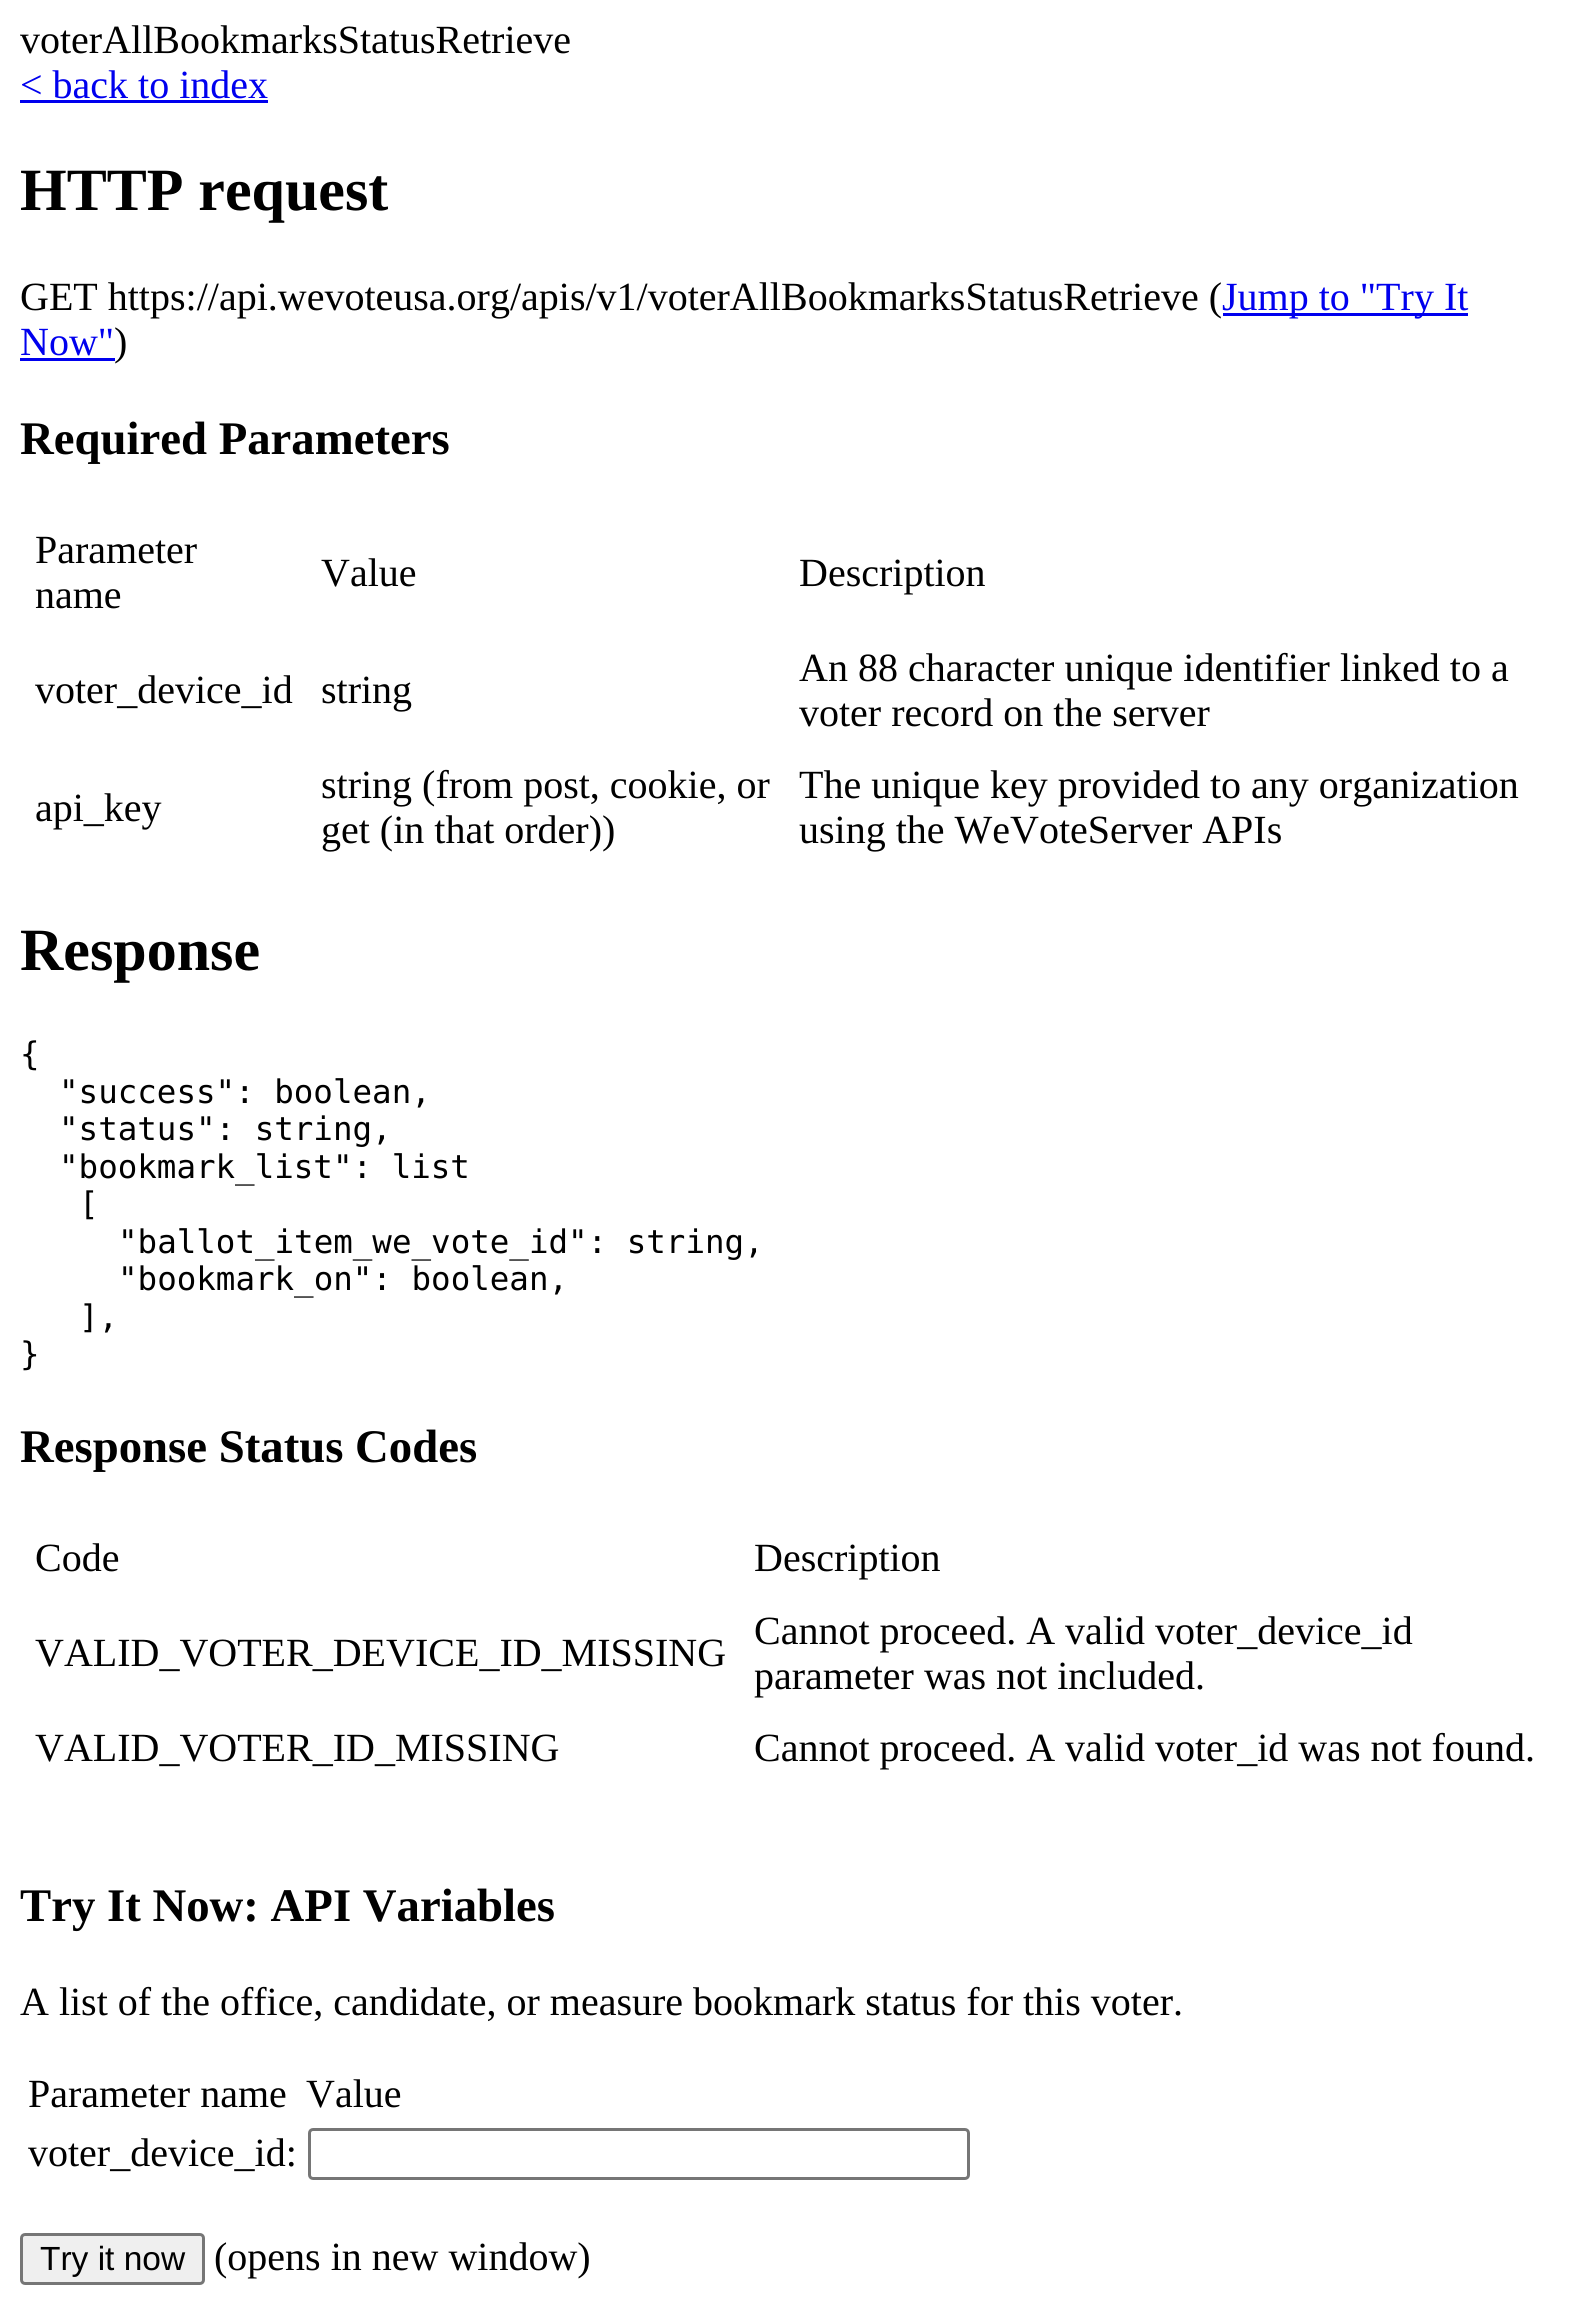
#include <cairo.h>
#include <math.h>
#include <stddef.h>

typedef struct { const char *family; double size; int italic, bold; unsigned color; } style_t;
static cairo_t *ctx;

static void ink(unsigned color) {
    cairo_set_source_rgb(ctx, (color >> 16) / 255.0, (color >> 8 & 255) / 255.0, (color & 255) / 255.0);
}

static void write(double x, double y, const char *s, const style_t *st) {
    cairo_select_font_face(ctx, st->family, st->italic ? CAIRO_FONT_SLANT_ITALIC : CAIRO_FONT_SLANT_NORMAL,
        st->bold ? CAIRO_FONT_WEIGHT_BOLD : CAIRO_FONT_WEIGHT_NORMAL);
    cairo_set_font_size(ctx, st->size);
    ink(st->color);
    cairo_move_to(ctx, x, y);
    cairo_show_text(ctx, s);
}

static void block(double x, double y, double w, double h, unsigned color) {
    ink(color);
    cairo_rectangle(ctx, x, y, w, h);
    cairo_fill(ctx);
}

static void round_path(double x, double y, double w, double h, double r) {
    cairo_new_sub_path(ctx);
    cairo_arc(ctx, x + w - r, y + h - r, r, 0, M_PI / 2);
    cairo_arc(ctx, x + r, y + h - r, r, M_PI / 2, M_PI);
    cairo_arc(ctx, x + r, y + r, r, M_PI, 1.5 * M_PI);
    cairo_arc(ctx, x + w - r, y + r, r, 1.5 * M_PI, 2 * M_PI);
    cairo_close_path(ctx);
}

static const style_t s1 = {"Liberation Serif", 40, 0, 0, 0x000000};
static const style_t s2 = {"Liberation Serif", 40, 0, 0, 0x0000ee};
static const style_t s3 = {"Liberation Serif", 60, 0, 1, 0x000000};
static const style_t s4 = {"Liberation Serif", 46.75, 0, 1, 0x000000};
static const style_t s5 = {"DejaVu Sans Mono", 32.5, 0, 0, 0x000000};
static const style_t s6 = {"Liberation Sans", 33.5, 0, 0, 0x000000};

int main(void) {
    cairo_surface_t *surface = cairo_image_surface_create(CAIRO_FORMAT_RGB24, 1585, 2315);
    ctx = cairo_create(surface);
    cairo_font_options_t *options = cairo_font_options_create();
    cairo_font_options_set_hint_metrics(options, CAIRO_HINT_METRICS_OFF);
    cairo_font_options_set_hint_style(options, CAIRO_HINT_STYLE_NONE);
    cairo_set_font_options(ctx, options);
    cairo_set_miter_limit(ctx, 4);
    ink(0xffffff);
    cairo_paint(ctx);
    write(20, 53, "voterAllBookmarksStatusRetrieve", &s1);
    write(20, 98, "< back to index", &s2);
    block(20, 100, 248, 3, 0x0000ee);
    write(20, 210, "HTTP request", &s3);
    write(20, 310, "GET https://api.wevoteusa.org/apis/v1/voterAllBookmarksStatusRetrieve (", &s1);
    block(1223, 313, 245, 3, 0x0000ee);
    write(1222, 310, "Jump to \"Try It", &s2);
    write(20, 355, "Now\"", &s2);
    block(20, 358, 95, 3, 0x0000ee);
    write(114, 355, ")", &s1);
    write(20, 454, "Required Parameters", &s4);
    write(35, 563, "Parameter", &s1);
    write(35, 608, "name", &s1);
    write(321, 586, "Value", &s1);
    write(799, 586, "Description", &s1);
    write(35, 703, "voter_device_id", &s1);
    write(321, 703, "string", &s1);
    write(799, 681, "An 88 character unique identifier linked to a", &s1);
    write(799, 726, "voter record on the server", &s1);
    write(35, 821, "api_key", &s1);
    write(321, 798, "string (from post, cookie, or", &s1);
    write(321, 843, "get (in that order))", &s1);
    write(799, 798, "The unique key provided to any organization", &s1);
    write(799, 843, "using the WeVoteServer APIs", &s1);
    write(20, 970, "Response", &s3);
    write(20, 1065, "{", &s5);
    write(59, 1103, "\"success\": boolean,", &s5);
    write(59, 1140, "\"status\": string,", &s5);
    write(59, 1178, "\"bookmark_list\": list", &s5);
    write(79, 1215, "[", &s5);
    write(118, 1253, "\"ballot_item_we_vote_id\": string,", &s5);
    write(118, 1290, "\"bookmark_on\": boolean,", &s5);
    write(79, 1328, "],", &s5);
    write(20, 1365, "}", &s5);
    write(20, 1462, "Response Status Codes", &s4);
    write(35, 1571, "Code", &s1);
    write(754, 1571, "Description", &s1);
    write(35, 1666, "VALID_VOTER_DEVICE_ID_MISSING", &s1);
    write(754, 1644, "Cannot proceed. A valid voter_device_id", &s1);
    write(754, 1689, "parameter was not included.", &s1);
    write(35, 1761, "VALID_VOTER_ID_MISSING", &s1);
    write(754, 1761, "Cannot proceed. A valid voter_id was not found.", &s1);
    write(20, 1921, "Try It Now: API Variables", &s4);
    write(20, 2015, "A list of the office, candidate, or measure bookmark status for this voter.", &s1);
    write(28, 2107, "Parameter name", &s1);
    write(306, 2107, "Value", &s1);
    write(28, 2166, "voter_device_id:", &s1);
    round_path(309.5, 2129.5, 659, 49, 3.5);
    ink(0x767676);
    cairo_set_line_width(ctx, 3);
    cairo_stroke(ctx);
    ink(0xefefef);
    round_path(21.5, 2234.5, 182, 49, 3.5);
    cairo_fill_preserve(ctx);
    ink(0x767676);
    cairo_stroke(ctx);
    write(40, 2270, "Try it now", &s6);
    write(214, 2270, "(opens in new window)", &s1);
    cairo_surface_write_to_png(surface, "screenshot.png");
    cairo_font_options_destroy(options);
    cairo_destroy(ctx);
    cairo_surface_destroy(surface);
    return 0;
}
